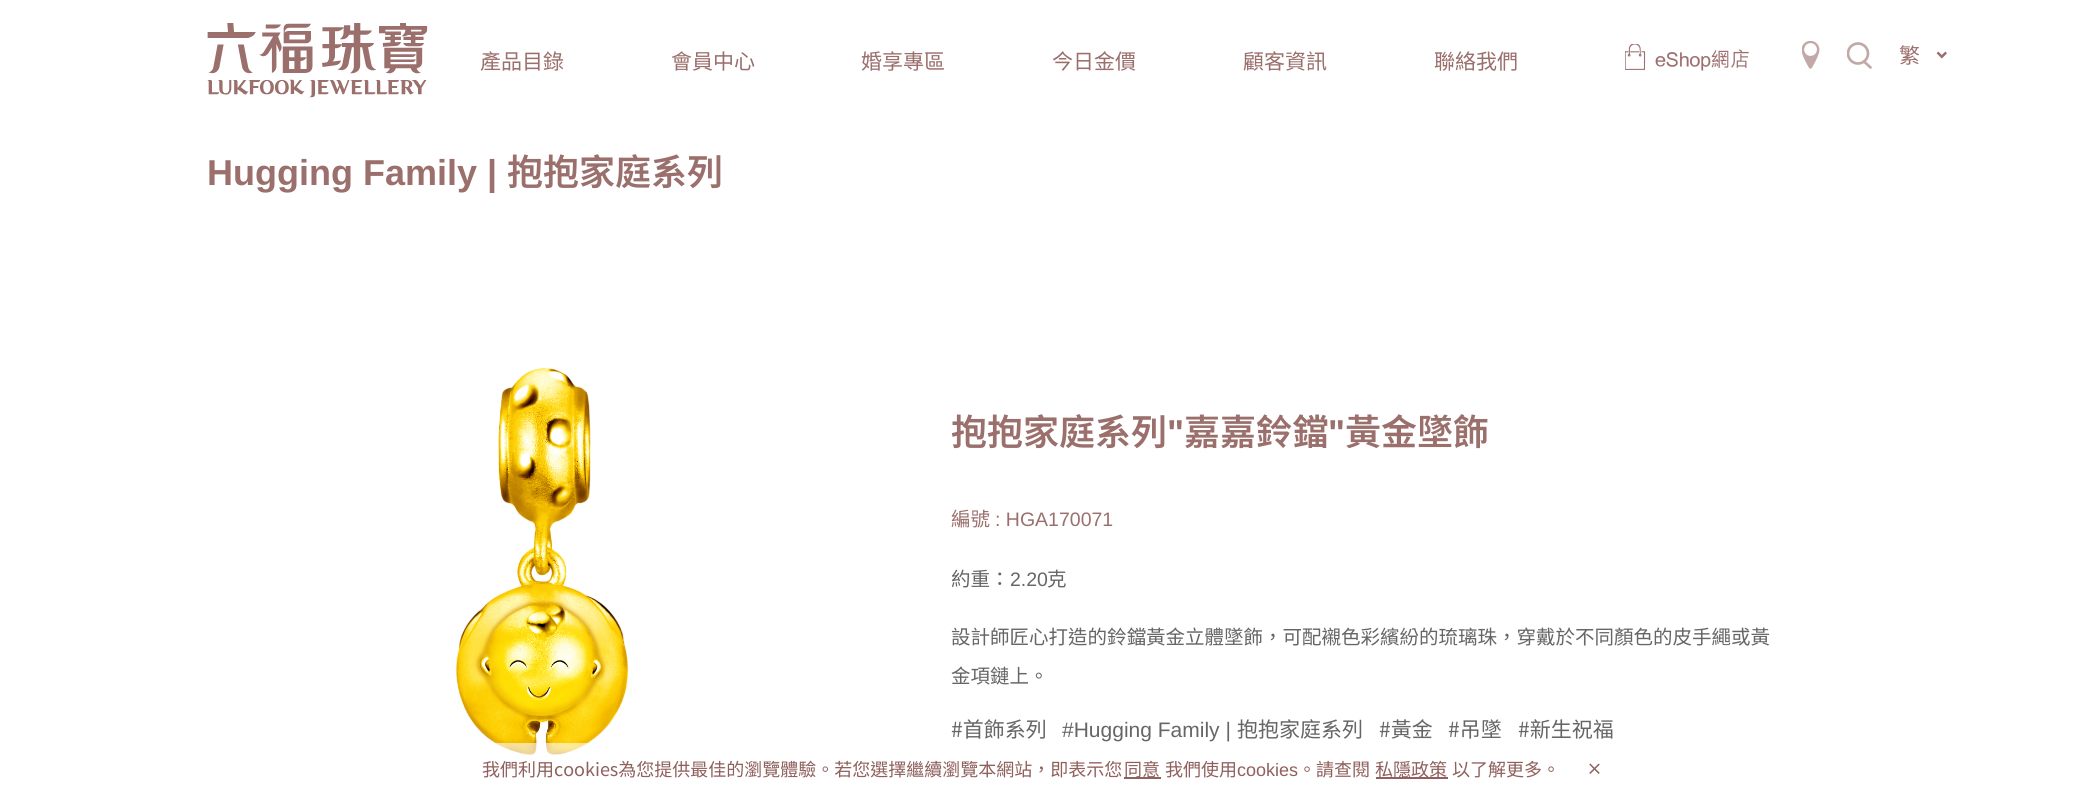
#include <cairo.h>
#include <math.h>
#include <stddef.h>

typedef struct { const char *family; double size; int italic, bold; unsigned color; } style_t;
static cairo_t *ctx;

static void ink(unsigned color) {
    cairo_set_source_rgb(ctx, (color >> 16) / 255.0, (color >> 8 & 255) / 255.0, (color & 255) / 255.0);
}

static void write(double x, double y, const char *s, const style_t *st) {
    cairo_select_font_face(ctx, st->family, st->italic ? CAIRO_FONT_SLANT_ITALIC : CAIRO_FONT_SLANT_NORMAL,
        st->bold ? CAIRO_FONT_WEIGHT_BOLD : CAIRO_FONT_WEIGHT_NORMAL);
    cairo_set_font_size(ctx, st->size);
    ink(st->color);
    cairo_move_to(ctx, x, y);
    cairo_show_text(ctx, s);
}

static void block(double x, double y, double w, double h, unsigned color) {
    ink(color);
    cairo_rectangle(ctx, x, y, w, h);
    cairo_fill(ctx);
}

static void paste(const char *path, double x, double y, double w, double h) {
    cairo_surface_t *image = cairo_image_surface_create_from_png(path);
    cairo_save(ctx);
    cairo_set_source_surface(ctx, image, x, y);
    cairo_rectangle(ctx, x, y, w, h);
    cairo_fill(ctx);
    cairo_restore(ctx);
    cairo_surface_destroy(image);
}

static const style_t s1 = {"Noto Sans TC", 21, 0, 0, 0x9a6f6c};
static const style_t s2 = {"Liberation Sans", 36, 0, 1, 0x9a6f6c};
static const style_t s3 = {"Noto Sans TC SemiBold", 36, 0, 0, 0x9a6f6c};
static const style_t s4 = {"Noto Sans TC", 19.5, 0, 0, 0x9a6f6c};
static const style_t s5 = {"Liberation Sans", 19.5, 0, 0, 0x9a6f6c};
static const style_t s6 = {"Noto Sans TC", 19.5, 0, 0, 0x666666};
static const style_t s7 = {"Liberation Sans", 19.5, 0, 0, 0x666666};
static const style_t s8 = {"Noto Sans TC", 21, 0, 0, 0x666666};
static const style_t s9 = {"Liberation Sans", 21, 0, 0, 0x666666};
static const style_t s10 = {"Noto Sans TC", 18, 0, 0, 0x8f605d};
static const style_t s11 = {"Liberation Sans", 18, 0, 0, 0x8f605d};

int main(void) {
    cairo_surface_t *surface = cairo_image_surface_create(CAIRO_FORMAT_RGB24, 2084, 794);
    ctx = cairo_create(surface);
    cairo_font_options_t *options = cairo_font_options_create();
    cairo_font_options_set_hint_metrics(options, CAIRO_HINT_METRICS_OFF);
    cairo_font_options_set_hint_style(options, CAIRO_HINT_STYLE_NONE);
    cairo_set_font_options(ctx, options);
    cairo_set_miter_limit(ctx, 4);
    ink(0xffffff);
    cairo_paint(ctx);
    paste("pic1.png", 207, 23, 221, 75);
    write(480, 69, "產品目錄", &s1);
    write(671, 69, "會員中心", &s1);
    write(861, 69, "婚享專區", &s1);
    write(1052, 69, "今日金價", &s1);
    write(1243, 69, "顧客資訊", &s1);
    write(1434, 69, "聯絡我們", &s1);
    paste("pic2.png", 1625, 44, 124, 27);
    paste("pic3.png", 1802, 41, 18, 28);
    cairo_save(ctx);
    cairo_rectangle(ctx, 1847, 42, 25, 27);
    cairo_clip(ctx);
    cairo_arc(ctx, 1858, 53.5, 10, 0, 2 * M_PI);
    ink(0xc2a9a7);
    cairo_set_line_width(ctx, 2.7);
    cairo_stroke(ctx);
    cairo_restore(ctx);
    cairo_new_path(ctx);
    cairo_move_to(ctx, 1864, 61.5);
    cairo_line_to(ctx, 1870.5, 67.5);
    ink(0xc2a9a7);
    cairo_set_line_width(ctx, 2.7);
    cairo_set_line_cap(ctx, CAIRO_LINE_CAP_ROUND);
    cairo_stroke(ctx);
    paste("pic4.png", 1936, 51, 11, 8);
    write(1899, 63, "繁", &s1);
    write(207, 185, "Hugging Family |", &s2);
    write(507, 185, "抱抱家庭系列", &s3);
    paste("pic5.png", 456, 368, 173, 387);
    write(951, 445, "抱抱家庭系列", &s3);
    write(1167, 445, "\"", &s2);
    write(1184, 445, "嘉嘉鈴鐺", &s3);
    write(1328, 445, "\"", &s2);
    write(1345, 445, "黃金墜飾", &s3);
    write(951, 526, "編號", &s4);
    write(995, 526, ": HGA170071", &s5);
    write(951, 586, "約重：", &s6);
    write(1010, 586, "2.20", &s7);
    write(1047, 586, "克", &s6);
    write(951, 644, "設計師匠心打造的鈴鐺黃金立體墜飾，可配襯色彩繽紛的琉璃珠，穿戴於不同顏色的皮手繩或黃", &s6);
    write(951, 683, "金項鏈上。", &s6);
    write(951, 737, "#首飾系列", &s8);
    write(1062, 737, "#Hugging Family |", &s9);
    write(1237, 737, "抱抱家庭系列", &s8);
    write(1379, 737, "#黃金", &s8);
    write(1448, 737, "#吊墜", &s8);
    write(1518, 737, "#新生祝福", &s8);
    cairo_set_source_rgba(ctx, 1, 1, 1, 0.6);
    cairo_rectangle(ctx, 495, 743, 93, 12);
    cairo_fill(ctx);
    write(482, 776, "我們利用cookies為您提供最佳的瀏覽體驗。若您選擇繼續瀏覽本網站，即表示您", &s10);
    block(1124, 777, 37, 2, 0x8f605d);
    write(1124, 776, "同意", &s10);
    write(1165, 776, "我們使用", &s10);
    write(1237, 776, "cookies", &s11);
    write(1298, 776, "。請查閱", &s10);
    block(1376, 777, 72, 2, 0x8f605d);
    write(1375, 776, "私隱政策", &s10);
    write(1452, 776, "以了解更多。", &s10);
    paste("pic6.png", 1589, 763, 11, 11);
    cairo_surface_write_to_png(surface, "screenshot.png");
    cairo_font_options_destroy(options);
    cairo_destroy(ctx);
    cairo_surface_destroy(surface);
    return 0;
}
